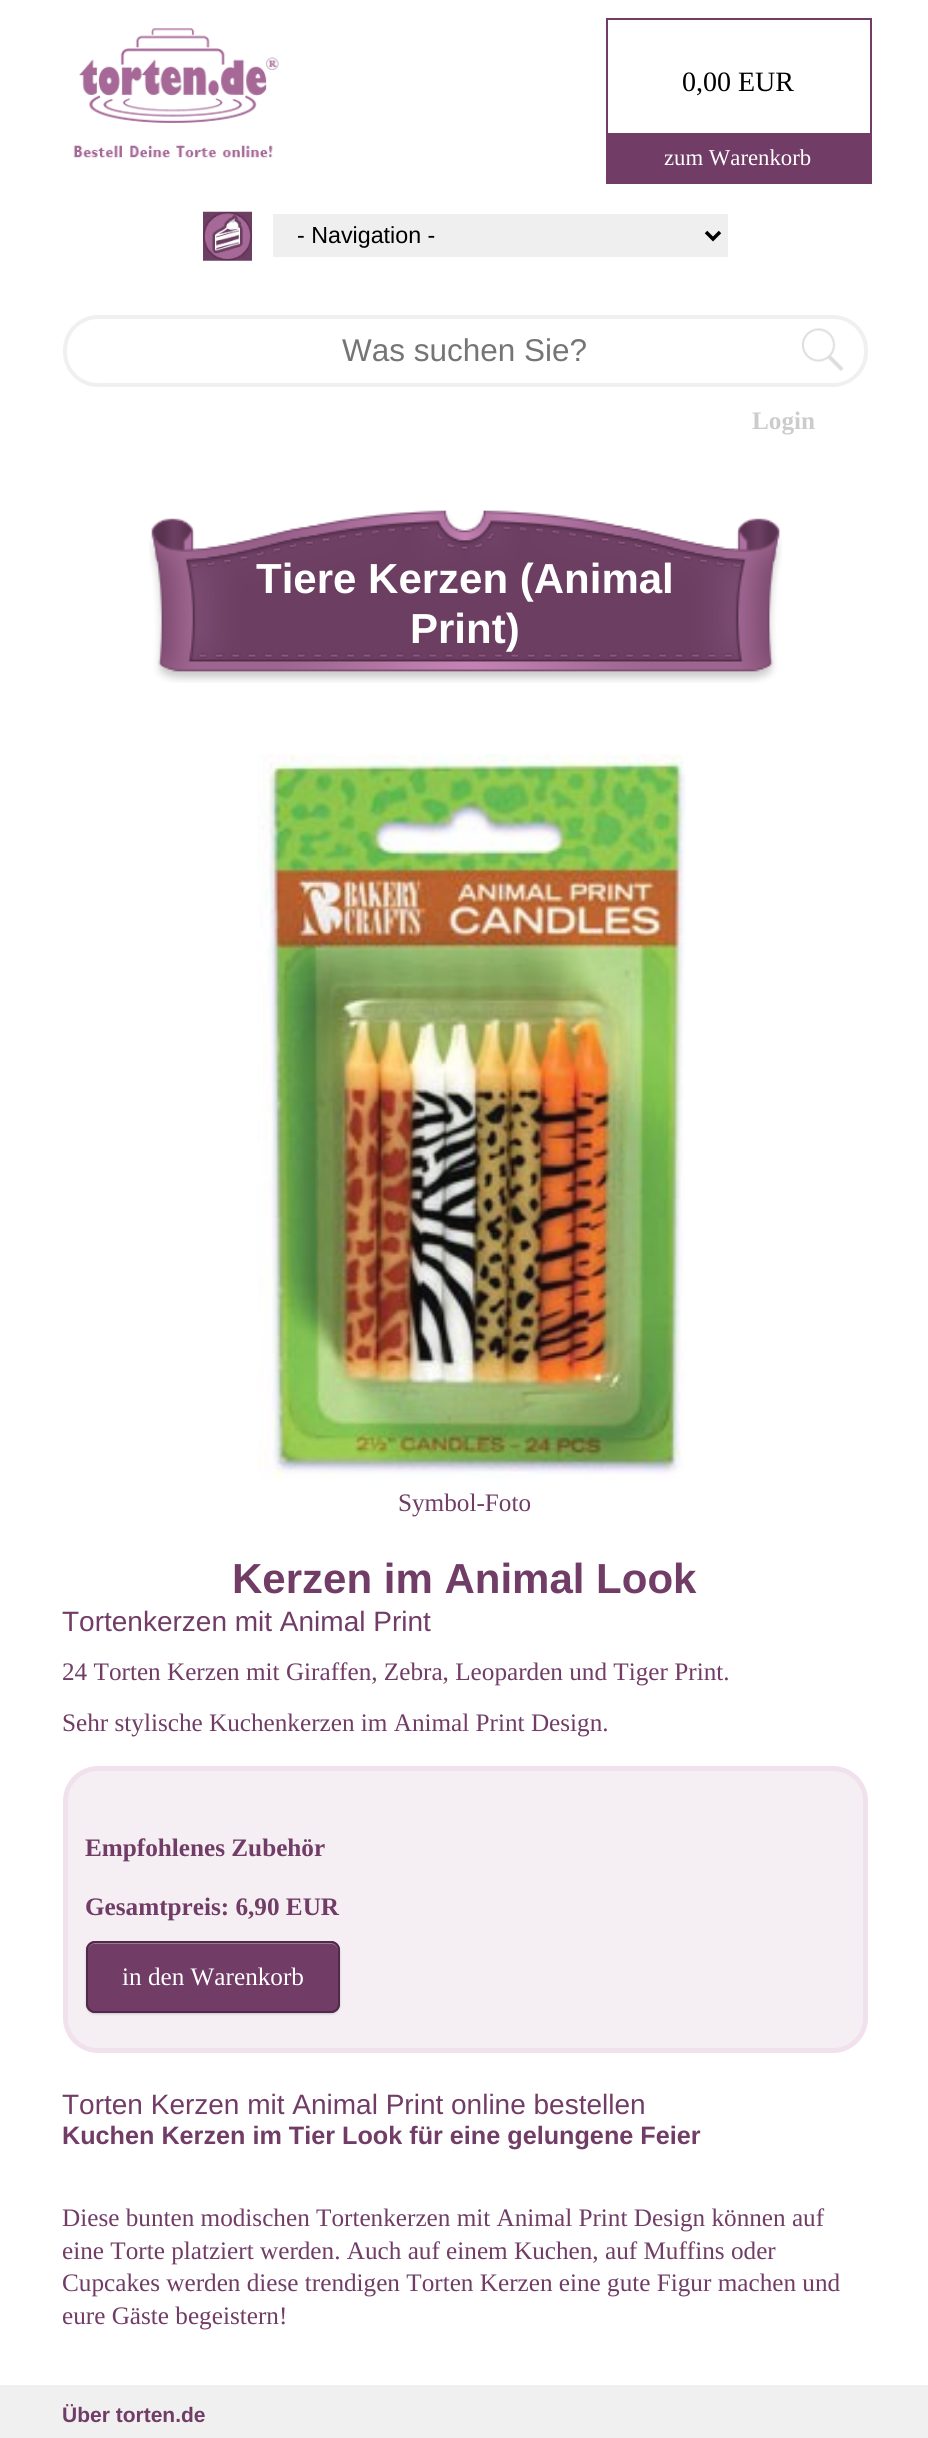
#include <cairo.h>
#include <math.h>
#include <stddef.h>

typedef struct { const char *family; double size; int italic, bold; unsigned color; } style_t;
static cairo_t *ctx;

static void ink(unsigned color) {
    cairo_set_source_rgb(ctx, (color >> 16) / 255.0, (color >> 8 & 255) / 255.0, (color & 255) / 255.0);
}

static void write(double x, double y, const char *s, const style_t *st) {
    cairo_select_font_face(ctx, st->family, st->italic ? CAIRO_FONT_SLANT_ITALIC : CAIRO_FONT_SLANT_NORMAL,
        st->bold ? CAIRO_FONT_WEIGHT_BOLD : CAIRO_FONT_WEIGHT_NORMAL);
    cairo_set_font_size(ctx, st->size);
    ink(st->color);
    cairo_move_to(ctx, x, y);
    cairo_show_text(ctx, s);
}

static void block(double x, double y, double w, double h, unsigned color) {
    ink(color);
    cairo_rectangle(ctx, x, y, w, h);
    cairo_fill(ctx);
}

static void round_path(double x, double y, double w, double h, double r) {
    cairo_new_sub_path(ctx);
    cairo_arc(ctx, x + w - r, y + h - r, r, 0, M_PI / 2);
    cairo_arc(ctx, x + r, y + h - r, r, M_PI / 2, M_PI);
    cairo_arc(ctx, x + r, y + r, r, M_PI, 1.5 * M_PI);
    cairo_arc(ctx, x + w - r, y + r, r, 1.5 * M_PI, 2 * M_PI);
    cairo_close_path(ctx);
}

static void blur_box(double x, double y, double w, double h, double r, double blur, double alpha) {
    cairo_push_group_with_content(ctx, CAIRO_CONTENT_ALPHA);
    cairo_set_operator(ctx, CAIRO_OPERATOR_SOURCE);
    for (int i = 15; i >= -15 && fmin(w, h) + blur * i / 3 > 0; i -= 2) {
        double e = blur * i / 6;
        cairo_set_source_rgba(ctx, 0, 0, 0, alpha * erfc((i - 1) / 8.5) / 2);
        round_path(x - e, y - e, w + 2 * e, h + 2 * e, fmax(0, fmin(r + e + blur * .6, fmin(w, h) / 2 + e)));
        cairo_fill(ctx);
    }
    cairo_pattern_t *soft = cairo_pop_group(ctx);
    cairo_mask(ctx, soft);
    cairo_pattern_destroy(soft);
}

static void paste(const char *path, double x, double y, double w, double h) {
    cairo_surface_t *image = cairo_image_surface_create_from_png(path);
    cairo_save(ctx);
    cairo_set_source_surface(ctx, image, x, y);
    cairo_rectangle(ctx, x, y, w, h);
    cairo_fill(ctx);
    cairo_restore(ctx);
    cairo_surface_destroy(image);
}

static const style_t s1 = {"Liberation Serif", 28, 0, 0, 0x000000};
static const style_t s2 = {"Liberation Serif", 22.75, 0, 0, 0xffffff};
static const style_t s3 = {"Liberation Sans", 23.25, 0, 0, 0x000000};
static const style_t s4 = {"Liberation Sans", 31.5, 0, 0, 0x757575};
static const style_t s5 = {"Liberation Serif", 25.2, 0, 1, 0xcccccc};
static const style_t s6 = {"Liberation Sans", 42, 0, 1, 0xffffff};
static const style_t s7 = {"Liberation Serif", 25.2, 0, 0, 0x713c66};
static const style_t s8 = {"Liberation Sans", 42, 0, 1, 0x713c66};
static const style_t s9 = {"Liberation Sans", 28, 0, 0, 0x713c66};
static const style_t s10 = {"Liberation Serif", 25.2, 0, 1, 0x713c66};
static const style_t s11 = {"Liberation Serif", 25.2, 0, 0, 0xffffff};
static const style_t s12 = {"Liberation Sans", 25.2, 0, 1, 0x713c66};
static const style_t s13 = {"Liberation Sans", 21, 0, 1, 0x713c66};

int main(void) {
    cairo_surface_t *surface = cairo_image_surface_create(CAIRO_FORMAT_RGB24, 928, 2438);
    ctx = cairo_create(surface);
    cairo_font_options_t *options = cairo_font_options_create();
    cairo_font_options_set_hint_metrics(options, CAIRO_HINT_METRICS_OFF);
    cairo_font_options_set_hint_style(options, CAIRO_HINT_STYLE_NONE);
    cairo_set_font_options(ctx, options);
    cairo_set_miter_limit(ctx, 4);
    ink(0xffffff);
    cairo_paint(ctx);
    paste("pic1.png", 73, 28, 206, 130);
    cairo_rectangle(ctx, 607, 19, 264, 115);
    ink(0x713c66);
    cairo_stroke(ctx);
    write(682, 91, "0,00 EUR", &s1);
    block(606, 135, 266, 49, 0x713c66);
    write(664, 165, "zum Warenkorb", &s2);
    paste("pic2.png", 203, 211, 49, 50);
    block(273, 214, 455, 43, 0xefefef);
    cairo_new_path(ctx);
    cairo_move_to(ctx, 706, 232);
    cairo_line_to(ctx, 713, 239);
    cairo_line_to(ctx, 720, 232);
    ink(0x000000);
    cairo_set_line_width(ctx, 3.5);
    cairo_stroke(ctx);
    write(297, 243, "- Navigation -", &s3);
    paste("pic3.png", 802, 328, 42, 43);
    round_path(65, 317, 801, 68, 33);
    ink(0xf0f0f0);
    cairo_set_line_width(ctx, 4);
    cairo_stroke(ctx);
    write(342, 361, "Was suchen Sie?", &s4);
    write(752, 429, "Login", &s5);
    paste("pic4.png", 149, 510, 633, 173);
    write(256, 593, "Tiere Kerzen (Animal", &s6);
    write(410, 643, "Print)", &s6);
    paste("pic5.png", 257, 754, 429, 725);
    write(398, 1511, "Symbol-Foto", &s7);
    write(232, 1593, "Kerzen im Animal Look", &s8);
    write(62, 1631, "Tortenkerzen mit Animal Print", &s9);
    write(62, 1680, "24 Torten Kerzen mit Giraffen, Zebra, Leoparden und Tiger Print.", &s7);
    write(62, 1731, "Sehr stylische Kuchenkerzen im Animal Print Design.", &s7);
    ink(0xf5eff4);
    round_path(65.5, 1768.5, 800, 282, 32.5);
    cairo_fill_preserve(ctx);
    ink(0xf1e1ed);
    cairo_set_line_width(ctx, 5);
    cairo_stroke(ctx);
    write(85, 1856, "Empfohlenes Zubehör", &s10);
    write(85, 1915, "Gesamtpreis: 6,90 EUR", &s10);
    ink(0x646464);
    blur_box(86, 1943, 254, 71, 9, 1, 0.3);
    ink(0x713c66);
    round_path(86, 1941, 254, 72, 9);
    cairo_fill(ctx);
    ink(0x9c7794);
    cairo_new_path(ctx);
    cairo_move_to(ctx, 94, 1944);
    cairo_line_to(ctx, 331, 1944);
    cairo_curve_to(ctx, 335, 1944, 338, 1947, 338, 1951);
    cairo_line_to(ctx, 338, 1950);
    cairo_curve_to(ctx, 338, 1946, 335, 1943, 331, 1943);
    cairo_line_to(ctx, 95, 1943);
    cairo_curve_to(ctx, 91, 1943, 88, 1946, 88, 1950);
    cairo_line_to(ctx, 88, 1951);
    cairo_curve_to(ctx, 88, 1947, 91, 1944, 94, 1944);
    cairo_close_path(ctx);
    cairo_fill(ctx);
    round_path(87, 1942, 252, 70, 8);
    ink(0x502a48);
    cairo_set_line_width(ctx, 2);
    cairo_stroke(ctx);
    write(122, 1985, "in den Warenkorb", &s11);
    write(62, 2114, "Torten Kerzen mit Animal Print online bestellen", &s9);
    write(62, 2144, "Kuchen Kerzen im Tier Look für eine gelungene Feier", &s12);
    write(62, 2226, "Diese bunten modischen Tortenkerzen mit Animal Print Design können auf", &s7);
    write(62, 2259, "eine Torte platziert werden. Auch auf einem Kuchen, auf Muffins oder", &s7);
    write(62, 2291, "Cupcakes werden diese trendigen Torten Kerzen eine gute Figur machen und", &s7);
    write(62, 2324, "eure Gäste begeistern!", &s7);
    block(0, 2385, 928, 53, 0xf0f0f0);
    write(62, 2422, "Über torten.de", &s13);
    cairo_surface_write_to_png(surface, "screenshot.png");
    cairo_font_options_destroy(options);
    cairo_destroy(ctx);
    cairo_surface_destroy(surface);
    return 0;
}
